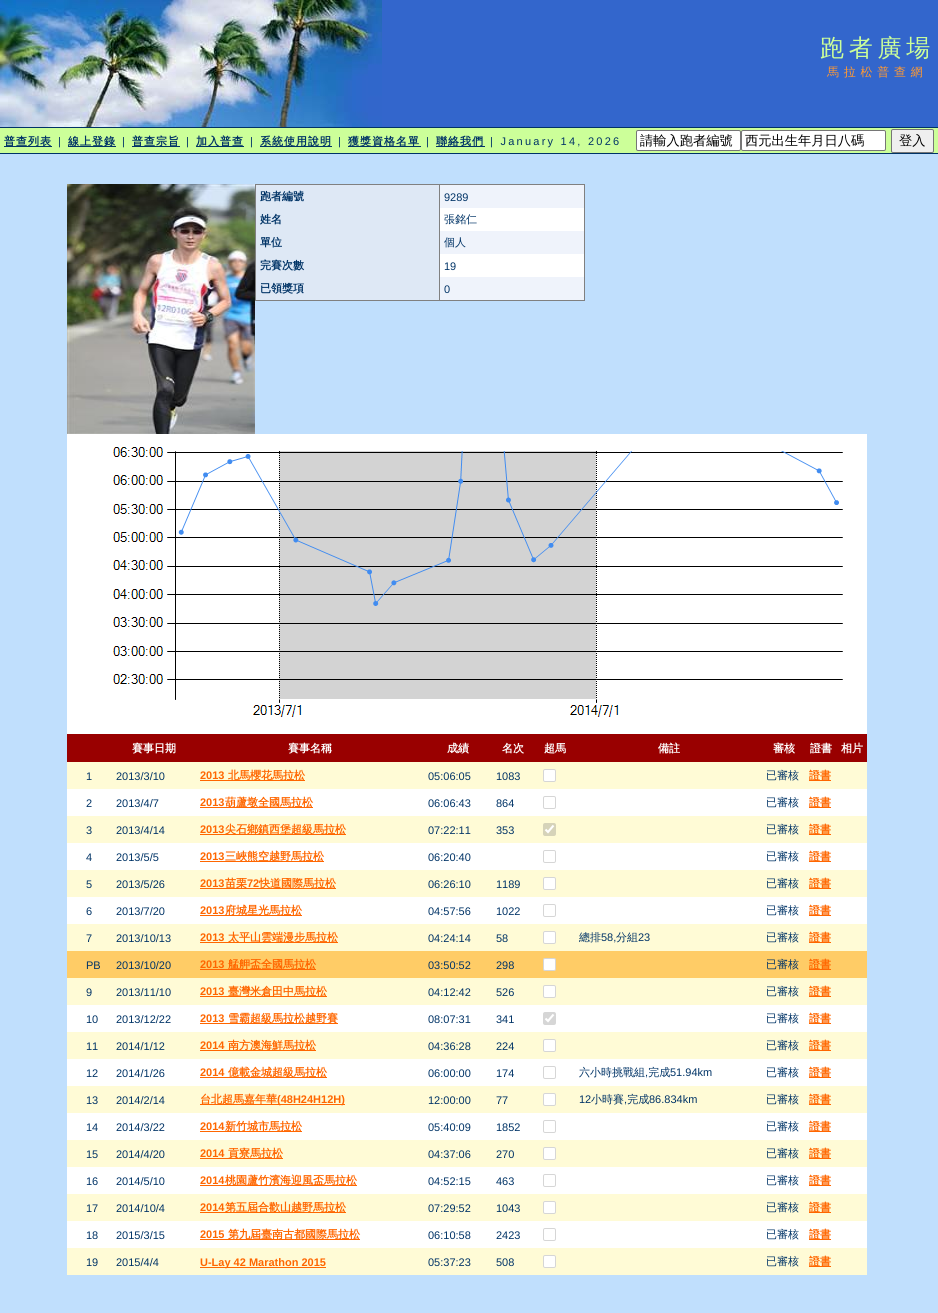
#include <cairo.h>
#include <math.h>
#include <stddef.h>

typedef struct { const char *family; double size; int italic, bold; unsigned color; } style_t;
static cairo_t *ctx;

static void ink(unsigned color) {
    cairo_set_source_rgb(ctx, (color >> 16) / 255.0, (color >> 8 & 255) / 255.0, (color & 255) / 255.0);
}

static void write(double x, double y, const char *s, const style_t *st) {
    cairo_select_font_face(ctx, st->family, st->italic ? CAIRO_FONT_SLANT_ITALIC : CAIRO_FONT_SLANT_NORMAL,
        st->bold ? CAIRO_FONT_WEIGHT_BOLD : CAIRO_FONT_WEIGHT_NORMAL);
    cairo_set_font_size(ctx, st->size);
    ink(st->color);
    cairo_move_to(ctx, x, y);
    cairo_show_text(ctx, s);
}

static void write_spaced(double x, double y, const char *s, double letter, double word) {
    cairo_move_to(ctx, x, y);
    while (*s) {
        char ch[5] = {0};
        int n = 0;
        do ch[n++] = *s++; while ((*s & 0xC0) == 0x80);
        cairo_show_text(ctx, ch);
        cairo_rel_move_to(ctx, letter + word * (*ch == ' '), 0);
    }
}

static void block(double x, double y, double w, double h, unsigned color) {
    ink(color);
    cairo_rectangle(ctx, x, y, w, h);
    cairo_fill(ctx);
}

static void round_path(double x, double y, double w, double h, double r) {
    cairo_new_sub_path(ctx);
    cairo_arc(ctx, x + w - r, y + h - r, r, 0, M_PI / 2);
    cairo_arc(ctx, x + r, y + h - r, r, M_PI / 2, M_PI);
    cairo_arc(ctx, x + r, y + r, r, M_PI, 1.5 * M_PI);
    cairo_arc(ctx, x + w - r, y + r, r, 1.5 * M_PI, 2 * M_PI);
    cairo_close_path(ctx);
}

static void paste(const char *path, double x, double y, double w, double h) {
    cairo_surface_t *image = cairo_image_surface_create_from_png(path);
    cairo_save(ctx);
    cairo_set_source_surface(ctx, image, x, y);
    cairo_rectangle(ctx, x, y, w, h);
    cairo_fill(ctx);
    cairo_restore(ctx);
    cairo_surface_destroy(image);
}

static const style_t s1 = {"WenQuanYi Zen Hei Medium", 13.25, 0, 0, 0x000000};
static const style_t s2 = {"WenQuanYi Zen Hei", 11, 0, 1, 0x003366};
static const style_t s3 = {"Liberation Sans", 11, 0, 0, 0x003366};
static const style_t s4 = {"WenQuanYi Zen Hei Medium", 11, 0, 0, 0x003366};
static const style_t s5 = {"WenQuanYi Zen Hei", 11, 0, 1, 0xffffff};
static const style_t s6 = {"Liberation Sans", 11, 0, 1, 0xff6600};
static const style_t s7 = {"WenQuanYi Zen Hei", 11, 0, 1, 0xff6600};

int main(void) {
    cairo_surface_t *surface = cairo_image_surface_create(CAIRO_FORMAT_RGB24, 938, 1313);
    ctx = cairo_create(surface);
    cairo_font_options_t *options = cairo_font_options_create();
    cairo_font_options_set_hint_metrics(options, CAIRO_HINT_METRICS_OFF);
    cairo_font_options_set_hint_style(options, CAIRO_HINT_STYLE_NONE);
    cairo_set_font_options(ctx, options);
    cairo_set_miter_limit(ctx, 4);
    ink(0xc0dffd);
    cairo_paint(ctx);
    block(382, 0, 556, 127, 0x3366cc);
    paste("pic1.png", 0, 0, 382, 127);
    cairo_select_font_face(ctx, "WenQuanYi Zen Hei Medium", CAIRO_FONT_SLANT_NORMAL, CAIRO_FONT_WEIGHT_NORMAL);
    cairo_set_font_size(ctx, 24);
    ink(0xccff99);
    write_spaced(820, 56, "跑者廣場", 4.75, 0);
    cairo_set_font_size(ctx, 12);
    ink(0xff9933);
    write_spaced(827, 76, "馬拉松普查網", 4.75, 0);
    block(0, 127, 938, 1, 0x003366);
    block(0, 128, 938, 25, 0xccff99);
    block(4, 146, 48, 1, 0x003366);
    cairo_select_font_face(ctx, "WenQuanYi Zen Hei", CAIRO_FONT_SLANT_NORMAL, CAIRO_FONT_WEIGHT_BOLD);
    cairo_set_font_size(ctx, 11);
    write_spaced(4, 145, "普查列表", 1, 0);
    cairo_select_font_face(ctx, "Liberation Sans", CAIRO_FONT_SLANT_NORMAL, CAIRO_FONT_WEIGHT_NORMAL);
    write_spaced(58, 145, "|", 2.25, 0);
    block(68, 146, 48, 1, 0x003366);
    cairo_select_font_face(ctx, "WenQuanYi Zen Hei", CAIRO_FONT_SLANT_NORMAL, CAIRO_FONT_WEIGHT_BOLD);
    write_spaced(68, 145, "線上登錄", 1, 0);
    cairo_select_font_face(ctx, "Liberation Sans", CAIRO_FONT_SLANT_NORMAL, CAIRO_FONT_WEIGHT_NORMAL);
    write_spaced(122, 145, "|", 2.25, 0);
    block(132, 146, 48, 1, 0x003366);
    cairo_select_font_face(ctx, "WenQuanYi Zen Hei", CAIRO_FONT_SLANT_NORMAL, CAIRO_FONT_WEIGHT_BOLD);
    write_spaced(132, 145, "普查宗旨", 1, 0);
    cairo_select_font_face(ctx, "Liberation Sans", CAIRO_FONT_SLANT_NORMAL, CAIRO_FONT_WEIGHT_NORMAL);
    write_spaced(186, 145, "|", 2.25, 0);
    block(196, 146, 48, 1, 0x003366);
    cairo_select_font_face(ctx, "WenQuanYi Zen Hei", CAIRO_FONT_SLANT_NORMAL, CAIRO_FONT_WEIGHT_BOLD);
    write_spaced(196, 145, "加入普查", 1, 0);
    cairo_select_font_face(ctx, "Liberation Sans", CAIRO_FONT_SLANT_NORMAL, CAIRO_FONT_WEIGHT_NORMAL);
    write_spaced(250, 145, "|", 2.25, 0);
    block(260, 146, 72, 1, 0x003366);
    cairo_select_font_face(ctx, "WenQuanYi Zen Hei", CAIRO_FONT_SLANT_NORMAL, CAIRO_FONT_WEIGHT_BOLD);
    write_spaced(260, 145, "系統使用說明", 1, 0);
    cairo_select_font_face(ctx, "Liberation Sans", CAIRO_FONT_SLANT_NORMAL, CAIRO_FONT_WEIGHT_NORMAL);
    write_spaced(338, 145, "|", 2.25, 0);
    block(348, 146, 73, 1, 0x003366);
    cairo_select_font_face(ctx, "WenQuanYi Zen Hei", CAIRO_FONT_SLANT_NORMAL, CAIRO_FONT_WEIGHT_BOLD);
    write_spaced(348, 145, "獲獎資格名單", 1, 0);
    cairo_select_font_face(ctx, "Liberation Sans", CAIRO_FONT_SLANT_NORMAL, CAIRO_FONT_WEIGHT_NORMAL);
    write_spaced(426, 145, "|", 2.25, 0);
    block(436, 146, 49, 1, 0x003366);
    cairo_select_font_face(ctx, "WenQuanYi Zen Hei", CAIRO_FONT_SLANT_NORMAL, CAIRO_FONT_WEIGHT_BOLD);
    write_spaced(436, 145, "聯絡我們", 1, 0);
    cairo_select_font_face(ctx, "Liberation Sans", CAIRO_FONT_SLANT_NORMAL, CAIRO_FONT_WEIGHT_NORMAL);
    write_spaced(490, 145, "| January 14, 2026", 2.25, 0);
    ink(0xffffff);
    round_path(636.5, 130.5, 104, 20, 1.5);
    cairo_fill_preserve(ctx);
    ink(0x767676);
    cairo_set_line_width(ctx, 1);
    cairo_stroke(ctx);
    write(640, 145, "請輸入跑者編號", &s1);
    ink(0xffffff);
    round_path(741.5, 130.5, 144, 20, 1.5);
    cairo_fill_preserve(ctx);
    ink(0x767676);
    cairo_stroke(ctx);
    write(745, 145, "西元出生年月日八碼", &s1);
    ink(0xefefef);
    round_path(891.5, 129.5, 42, 23, 1.5);
    cairo_fill_preserve(ctx);
    ink(0x767676);
    cairo_stroke(ctx);
    write(899, 145, "登入", &s1);
    block(0, 153, 938, 1, 0x003366);
    paste("pic2.png", 67, 184, 188, 250);
    block(255, 184, 330, 1, 0x808080);
    block(584, 184, 1, 117, 0x808080);
    block(255, 300, 330, 1, 0x808080);
    block(255, 184, 1, 117, 0x808080);
    block(440, 185, 144, 23, 0xeff3fb);
    block(256, 185, 183, 115, 0xdee8f5);
    write(260, 200, "跑者編號", &s2);
    write(444, 201, "9289", &s3);
    block(440, 208, 144, 23, 0xffffff);
    write(260, 223, "姓名", &s2);
    write(444, 223, "張銘仁", &s4);
    block(440, 231, 144, 23, 0xeff3fb);
    write(260, 246, "單位", &s2);
    write(444, 246, "個人", &s4);
    block(440, 254, 144, 23, 0xffffff);
    write(260, 269, "完賽次數", &s2);
    write(444, 270, "19", &s3);
    block(440, 277, 144, 23, 0xeff3fb);
    write(260, 292, "已領獎項", &s2);
    block(439, 184, 1, 117, 0x808080);
    write(444, 293, "0", &s3);
    paste("pic3.png", 67, 434, 800, 300);
    block(67, 734, 800, 28, 0x990000);
    write(132, 752, "賽事日期", &s5);
    write(288, 752, "賽事名稱", &s5);
    write(447, 752, "成績", &s5);
    write(502, 752, "名次", &s5);
    write(544, 752, "超馬", &s5);
    write(658, 752, "備註", &s5);
    write(773, 752, "審核", &s5);
    write(810, 752, "證書", &s5);
    write(841, 752, "相片", &s5);
    block(67, 762, 800, 27, 0xfffbd6);
    write(86, 780, "1", &s3);
    write(116, 780, "2013/3/10", &s3);
    write(200, 779, "2013", &s6);
    block(200, 780, 105, 1, 0xff6600);
    write(228, 779, "北馬櫻花馬拉松", &s7);
    write(428, 780, "05:06:05", &s3);
    write(496, 780, "1083", &s3);
    ink(0xffffff);
    round_path(543, 769, 13, 13, 2);
    cairo_fill(ctx);
    round_path(543.5, 769.5, 12, 12, 1.5);
    cairo_set_source_rgba(ctx, 0.463, 0.463, 0.463, 0.3);
    cairo_stroke(ctx);
    write(766, 779, "已審核", &s4);
    block(809, 780, 22, 1, 0xff6600);
    write(809, 779, "證書", &s7);
    block(67, 789, 800, 27, 0xffffff);
    write(86, 807, "2", &s3);
    write(116, 807, "2013/4/7", &s3);
    write(200, 806, "2013", &s6);
    block(200, 807, 113, 1, 0xff6600);
    write(225, 806, "葫蘆墩全國馬拉松", &s7);
    write(428, 807, "06:06:43", &s3);
    write(496, 807, "864", &s3);
    round_path(543.5, 796.5, 12, 12, 1.5);
    ink(0xd6d6d6);
    cairo_stroke(ctx);
    write(766, 806, "已審核", &s4);
    block(809, 807, 22, 1, 0xff6600);
    write(809, 806, "證書", &s7);
    block(67, 816, 800, 27, 0xfffbd6);
    write(86, 834, "3", &s3);
    write(116, 834, "2013/4/14", &s3);
    write(200, 833, "2013", &s6);
    block(200, 834, 146, 1, 0xff6600);
    write(225, 833, "尖石鄉鎮西堡超級馬拉松", &s7);
    write(428, 834, "07:22:11", &s3);
    write(496, 834, "353", &s3);
    ink(0xd6d3b9);
    round_path(543, 823, 13, 13, 2);
    cairo_fill(ctx);
    cairo_new_path(ctx);
    cairo_move_to(ctx, 545.5, 829.5);
    cairo_line_to(ctx, 548, 832);
    cairo_line_to(ctx, 553.5, 825.5);
    ink(0xffffff);
    cairo_set_line_width(ctx, 2.1);
    cairo_stroke(ctx);
    write(766, 833, "已審核", &s4);
    block(809, 834, 22, 1, 0xff6600);
    write(809, 833, "證書", &s7);
    block(67, 843, 800, 27, 0xffffff);
    write(86, 861, "4", &s3);
    write(116, 861, "2013/5/5", &s3);
    write(200, 860, "2013", &s6);
    block(200, 861, 124, 1, 0xff6600);
    write(225, 860, "三峽熊空越野馬拉松", &s7);
    write(428, 861, "06:20:40", &s3);
    round_path(543.5, 850.5, 12, 12, 1.5);
    ink(0xd6d6d6);
    cairo_set_line_width(ctx, 1);
    cairo_stroke(ctx);
    write(766, 860, "已審核", &s4);
    block(809, 861, 22, 1, 0xff6600);
    write(809, 860, "證書", &s7);
    block(67, 870, 800, 27, 0xfffbd6);
    write(86, 888, "5", &s3);
    write(116, 888, "2013/5/26", &s3);
    write(200, 887, "2013", &s6);
    block(200, 888, 136, 1, 0xff6600);
    write(225, 887, "苗栗", &s7);
    write(247, 887, "72", &s6);
    write(259, 887, "快道國際馬拉松", &s7);
    write(428, 888, "06:26:10", &s3);
    write(496, 888, "1189", &s3);
    ink(0xffffff);
    round_path(543, 877, 13, 13, 2);
    cairo_fill(ctx);
    round_path(543.5, 877.5, 12, 12, 1.5);
    cairo_set_source_rgba(ctx, 0.463, 0.463, 0.463, 0.3);
    cairo_stroke(ctx);
    write(766, 887, "已審核", &s4);
    block(809, 888, 22, 1, 0xff6600);
    write(809, 887, "證書", &s7);
    block(67, 897, 800, 27, 0xffffff);
    write(86, 915, "6", &s3);
    write(116, 915, "2013/7/20", &s3);
    write(200, 914, "2013", &s6);
    block(200, 915, 102, 1, 0xff6600);
    write(225, 914, "府城星光馬拉松", &s7);
    write(428, 915, "04:57:56", &s3);
    write(496, 915, "1022", &s3);
    round_path(543.5, 904.5, 12, 12, 1.5);
    ink(0xd6d6d6);
    cairo_stroke(ctx);
    write(766, 914, "已審核", &s4);
    block(809, 915, 22, 1, 0xff6600);
    write(809, 914, "證書", &s7);
    block(67, 924, 800, 27, 0xfffbd6);
    write(86, 942, "7", &s3);
    write(116, 942, "2013/10/13", &s3);
    write(200, 941, "2013", &s6);
    block(200, 942, 138, 1, 0xff6600);
    write(228, 941, "太平山雲端漫步馬拉松", &s7);
    write(428, 942, "04:24:14", &s3);
    write(496, 942, "58", &s3);
    ink(0xffffff);
    round_path(543, 931, 13, 13, 2);
    cairo_fill(ctx);
    round_path(543.5, 931.5, 12, 12, 1.5);
    cairo_set_source_rgba(ctx, 0.463, 0.463, 0.463, 0.3);
    cairo_stroke(ctx);
    write(579, 941, "總排", &s4);
    write(601, 941, "58,", &s3);
    write(616, 941, "分組", &s4);
    write(638, 941, "23", &s3);
    write(766, 941, "已審核", &s4);
    block(809, 942, 22, 1, 0xff6600);
    write(809, 941, "證書", &s7);
    block(67, 951, 800, 27, 0xffcc66);
    write(86, 969, "PB", &s3);
    write(116, 969, "2013/10/20", &s3);
    write(200, 968, "2013", &s6);
    block(200, 969, 116, 1, 0xff6600);
    write(228, 968, "艋舺盃全國馬拉松", &s7);
    write(428, 969, "03:50:52", &s3);
    write(496, 969, "298", &s3);
    ink(0xffffff);
    round_path(543, 958, 13, 13, 2);
    cairo_fill(ctx);
    round_path(543.5, 958.5, 12, 12, 1.5);
    cairo_set_source_rgba(ctx, 0.463, 0.463, 0.463, 0.3);
    cairo_stroke(ctx);
    write(766, 968, "已審核", &s4);
    block(809, 969, 22, 1, 0xff6600);
    write(809, 968, "證書", &s7);
    block(67, 978, 800, 27, 0xfffbd6);
    write(86, 996, "9", &s3);
    write(116, 996, "2013/11/10", &s3);
    write(200, 995, "2013", &s6);
    block(200, 996, 127, 1, 0xff6600);
    write(228, 995, "臺灣米倉田中馬拉松", &s7);
    write(428, 996, "04:12:42", &s3);
    write(496, 996, "526", &s3);
    ink(0xffffff);
    round_path(543, 985, 13, 13, 2);
    cairo_fill(ctx);
    round_path(543.5, 985.5, 12, 12, 1.5);
    cairo_set_source_rgba(ctx, 0.463, 0.463, 0.463, 0.3);
    cairo_stroke(ctx);
    write(766, 995, "已審核", &s4);
    block(809, 996, 22, 1, 0xff6600);
    write(809, 995, "證書", &s7);
    block(67, 1005, 800, 27, 0xffffff);
    write(86, 1023, "10", &s3);
    write(116, 1023, "2013/12/22", &s3);
    write(200, 1022, "2013", &s6);
    block(200, 1023, 138, 1, 0xff6600);
    write(228, 1022, "雪霸超級馬拉松越野賽", &s7);
    write(428, 1023, "08:07:31", &s3);
    write(496, 1023, "341", &s3);
    ink(0xd6d6d6);
    round_path(543, 1012, 13, 13, 2);
    cairo_fill(ctx);
    cairo_new_path(ctx);
    cairo_move_to(ctx, 545.5, 1018.5);
    cairo_line_to(ctx, 548, 1021);
    cairo_line_to(ctx, 553.5, 1014.5);
    ink(0xffffff);
    cairo_set_line_width(ctx, 2.1);
    cairo_stroke(ctx);
    write(766, 1022, "已審核", &s4);
    block(809, 1023, 22, 1, 0xff6600);
    write(809, 1022, "證書", &s7);
    block(67, 1032, 800, 27, 0xfffbd6);
    write(86, 1050, "11", &s3);
    write(116, 1050, "2014/1/12", &s3);
    write(200, 1049, "2014", &s6);
    block(200, 1050, 116, 1, 0xff6600);
    write(228, 1049, "南方澳海鮮馬拉松", &s7);
    write(428, 1050, "04:36:28", &s3);
    write(496, 1050, "224", &s3);
    ink(0xffffff);
    round_path(543, 1039, 13, 13, 2);
    cairo_fill(ctx);
    round_path(543.5, 1039.5, 12, 12, 1.5);
    cairo_set_source_rgba(ctx, 0.463, 0.463, 0.463, 0.3);
    cairo_set_line_width(ctx, 1);
    cairo_stroke(ctx);
    write(766, 1049, "已審核", &s4);
    block(809, 1050, 22, 1, 0xff6600);
    write(809, 1049, "證書", &s7);
    block(67, 1059, 800, 27, 0xffffff);
    write(86, 1077, "12", &s3);
    write(116, 1077, "2014/1/26", &s3);
    write(200, 1076, "2014", &s6);
    block(200, 1077, 127, 1, 0xff6600);
    write(228, 1076, "億載金城超級馬拉松", &s7);
    write(428, 1077, "06:00:00", &s3);
    write(496, 1077, "174", &s3);
    round_path(543.5, 1066.5, 12, 12, 1.5);
    ink(0xd6d6d6);
    cairo_stroke(ctx);
    write(579, 1076, "六小時挑戰組 完成", &s4);
    write(670, 1076, "51.94km", &s3);
    write(645, 1076, ",", &s3);
    write(766, 1076, "已審核", &s4);
    block(809, 1077, 22, 1, 0xff6600);
    write(809, 1076, "證書", &s7);
    block(67, 1086, 800, 27, 0xfffbd6);
    write(86, 1104, "13", &s3);
    write(116, 1104, "2014/2/14", &s3);
    block(200, 1104, 145, 1, 0xff6600);
    write(200, 1103, "台北超馬嘉年華", &s7);
    write(277, 1103, "(48H24H12H)", &s6);
    write(428, 1104, "12:00:00", &s3);
    write(496, 1104, "77", &s3);
    ink(0xffffff);
    round_path(543, 1093, 13, 13, 2);
    cairo_fill(ctx);
    round_path(543.5, 1093.5, 12, 12, 1.5);
    cairo_set_source_rgba(ctx, 0.463, 0.463, 0.463, 0.3);
    cairo_stroke(ctx);
    write(579, 1103, "12", &s3);
    write(591, 1103, "小時賽 完成", &s4);
    write(649, 1103, "86.834km", &s3);
    write(624, 1103, ",", &s3);
    write(766, 1103, "已審核", &s4);
    block(809, 1104, 22, 1, 0xff6600);
    write(809, 1103, "證書", &s7);
    block(67, 1113, 800, 27, 0xffffff);
    write(86, 1131, "14", &s3);
    write(116, 1131, "2014/3/22", &s3);
    write(200, 1130, "2014", &s6);
    block(200, 1131, 102, 1, 0xff6600);
    write(225, 1130, "新竹城市馬拉松", &s7);
    write(428, 1131, "05:40:09", &s3);
    write(496, 1131, "1852", &s3);
    round_path(543.5, 1120.5, 12, 12, 1.5);
    ink(0xd6d6d6);
    cairo_stroke(ctx);
    write(766, 1130, "已審核", &s4);
    block(809, 1131, 22, 1, 0xff6600);
    write(809, 1130, "證書", &s7);
    block(67, 1140, 800, 27, 0xfffbd6);
    write(86, 1158, "15", &s3);
    write(116, 1158, "2014/4/20", &s3);
    write(200, 1157, "2014", &s6);
    block(200, 1158, 83, 1, 0xff6600);
    write(228, 1157, "貢寮馬拉松", &s7);
    write(428, 1158, "04:37:06", &s3);
    write(496, 1158, "270", &s3);
    ink(0xffffff);
    round_path(543, 1147, 13, 13, 2);
    cairo_fill(ctx);
    round_path(543.5, 1147.5, 12, 12, 1.5);
    cairo_set_source_rgba(ctx, 0.463, 0.463, 0.463, 0.3);
    cairo_stroke(ctx);
    write(766, 1157, "已審核", &s4);
    block(809, 1158, 22, 1, 0xff6600);
    write(809, 1157, "證書", &s7);
    block(67, 1167, 800, 27, 0xffffff);
    write(86, 1185, "16", &s3);
    write(116, 1185, "2014/5/10", &s3);
    write(200, 1184, "2014", &s6);
    block(200, 1185, 157, 1, 0xff6600);
    write(225, 1184, "桃園蘆竹濱海迎風盃馬拉松", &s7);
    write(428, 1185, "04:52:15", &s3);
    write(496, 1185, "463", &s3);
    round_path(543.5, 1174.5, 12, 12, 1.5);
    ink(0xd6d6d6);
    cairo_stroke(ctx);
    write(766, 1184, "已審核", &s4);
    block(809, 1185, 22, 1, 0xff6600);
    write(809, 1184, "證書", &s7);
    block(67, 1194, 800, 27, 0xfffbd6);
    write(86, 1212, "17", &s3);
    write(116, 1212, "2014/10/4", &s3);
    write(200, 1211, "2014", &s6);
    block(200, 1212, 146, 1, 0xff6600);
    write(225, 1211, "第五屆合歡山越野馬拉松", &s7);
    write(428, 1212, "07:29:52", &s3);
    write(496, 1212, "1043", &s3);
    ink(0xffffff);
    round_path(543, 1201, 13, 13, 2);
    cairo_fill(ctx);
    round_path(543.5, 1201.5, 12, 12, 1.5);
    cairo_set_source_rgba(ctx, 0.463, 0.463, 0.463, 0.3);
    cairo_stroke(ctx);
    write(766, 1211, "已審核", &s4);
    block(809, 1212, 22, 1, 0xff6600);
    write(809, 1211, "證書", &s7);
    block(67, 1221, 800, 27, 0xffffff);
    write(86, 1239, "18", &s3);
    write(116, 1239, "2015/3/15", &s3);
    write(200, 1238, "2015", &s6);
    block(200, 1239, 160, 1, 0xff6600);
    write(228, 1238, "第九屆臺南古都國際馬拉松", &s7);
    write(428, 1239, "06:10:58", &s3);
    write(496, 1239, "2423", &s3);
    round_path(543.5, 1228.5, 12, 12, 1.5);
    ink(0xd6d6d6);
    cairo_stroke(ctx);
    write(766, 1238, "已審核", &s4);
    block(809, 1239, 22, 1, 0xff6600);
    write(809, 1238, "證書", &s7);
    block(67, 1248, 800, 27, 0xfffbd6);
    write(86, 1266, "19", &s3);
    write(116, 1266, "2015/4/4", &s3);
    block(200, 1267, 126, 1, 0xff6600);
    write(200, 1266, "U-Lay 42 Marathon 2015", &s6);
    write(428, 1266, "05:37:23", &s3);
    write(496, 1266, "508", &s3);
    ink(0xffffff);
    round_path(543, 1255, 13, 13, 2);
    cairo_fill(ctx);
    round_path(543.5, 1255.5, 12, 12, 1.5);
    cairo_set_source_rgba(ctx, 0.463, 0.463, 0.463, 0.3);
    cairo_stroke(ctx);
    write(766, 1265, "已審核", &s4);
    block(809, 1266, 22, 1, 0xff6600);
    write(809, 1265, "證書", &s7);
    cairo_surface_write_to_png(surface, "screenshot.png");
    cairo_font_options_destroy(options);
    cairo_destroy(ctx);
    cairo_surface_destroy(surface);
    return 0;
}
